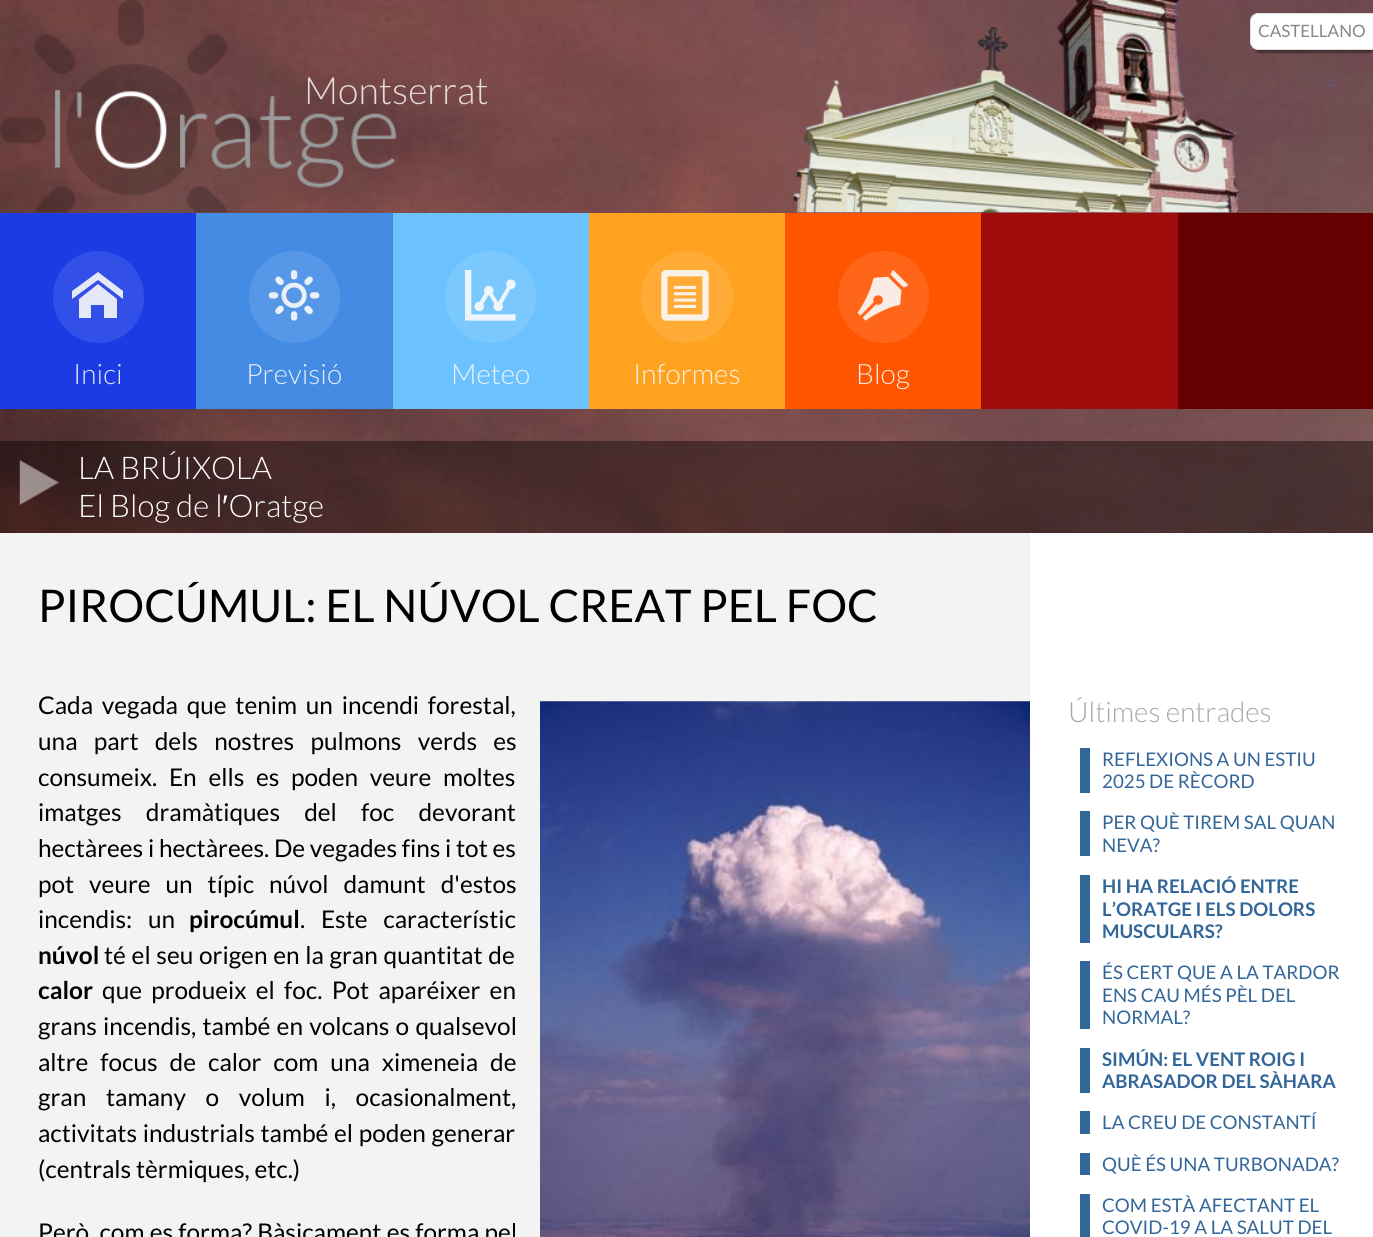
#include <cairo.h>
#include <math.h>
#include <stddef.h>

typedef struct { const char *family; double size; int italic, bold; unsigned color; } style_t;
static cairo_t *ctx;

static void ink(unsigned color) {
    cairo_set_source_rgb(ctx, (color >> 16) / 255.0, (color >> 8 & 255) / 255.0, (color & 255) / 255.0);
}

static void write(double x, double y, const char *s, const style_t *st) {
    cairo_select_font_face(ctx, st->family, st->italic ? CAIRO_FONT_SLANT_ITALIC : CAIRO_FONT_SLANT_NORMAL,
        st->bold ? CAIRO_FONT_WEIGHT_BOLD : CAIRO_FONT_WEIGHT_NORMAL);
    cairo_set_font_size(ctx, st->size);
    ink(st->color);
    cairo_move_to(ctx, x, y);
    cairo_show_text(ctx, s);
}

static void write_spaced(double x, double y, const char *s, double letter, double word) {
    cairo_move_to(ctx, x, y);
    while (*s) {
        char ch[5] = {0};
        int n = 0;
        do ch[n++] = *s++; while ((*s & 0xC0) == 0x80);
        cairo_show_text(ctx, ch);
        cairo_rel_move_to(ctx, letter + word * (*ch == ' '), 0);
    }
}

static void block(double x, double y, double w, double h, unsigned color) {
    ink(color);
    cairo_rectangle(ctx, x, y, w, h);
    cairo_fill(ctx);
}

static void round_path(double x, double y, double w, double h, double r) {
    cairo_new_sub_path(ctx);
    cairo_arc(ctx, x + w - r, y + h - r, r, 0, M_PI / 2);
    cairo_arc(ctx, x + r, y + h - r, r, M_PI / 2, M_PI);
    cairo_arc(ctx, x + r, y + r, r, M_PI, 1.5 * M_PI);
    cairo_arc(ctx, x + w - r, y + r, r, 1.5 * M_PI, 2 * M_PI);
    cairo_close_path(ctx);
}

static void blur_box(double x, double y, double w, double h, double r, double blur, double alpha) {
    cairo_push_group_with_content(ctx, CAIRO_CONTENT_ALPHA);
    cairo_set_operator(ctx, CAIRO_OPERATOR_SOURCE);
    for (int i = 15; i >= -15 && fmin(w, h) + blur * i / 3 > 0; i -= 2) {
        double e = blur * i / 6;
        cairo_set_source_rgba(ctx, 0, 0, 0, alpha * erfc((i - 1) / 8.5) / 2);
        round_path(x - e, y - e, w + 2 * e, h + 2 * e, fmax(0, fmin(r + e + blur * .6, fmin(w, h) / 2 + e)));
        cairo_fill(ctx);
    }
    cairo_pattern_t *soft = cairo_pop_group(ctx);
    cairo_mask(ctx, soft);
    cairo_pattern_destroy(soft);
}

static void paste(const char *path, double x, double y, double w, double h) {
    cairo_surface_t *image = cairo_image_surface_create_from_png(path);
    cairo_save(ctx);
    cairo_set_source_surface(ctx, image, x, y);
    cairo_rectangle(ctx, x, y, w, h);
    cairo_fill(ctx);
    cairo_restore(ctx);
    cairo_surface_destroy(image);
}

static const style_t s1 = {"Lato", 17, 0, 0, 0x868686};
static const style_t s2 = {"Lato Light", 37.5, 0, 0, 0xe3dada};
static const style_t s3 = {"Lato Light", 28, 0, 0, 0xe3e6f7};
static const style_t s4 = {"Lato Light", 28, 0, 0, 0xe7eef7};
static const style_t s5 = {"Lato Light", 28, 0, 0, 0xebf4fa};
static const style_t s6 = {"Lato Light", 28, 0, 0, 0xfaf0e3};
static const style_t s7 = {"Lato Light", 28, 0, 0, 0xfae9e0};
static const style_t s8 = {"Lato Light", 31.25, 0, 0, 0xffffff};
static const style_t s9 = {"Liberation Sans", 31.25, 0, 0, 0xffffff};
static const style_t s10 = {"Lato", 45, 0, 0, 0x000000};
static const style_t s11 = {"Lato", 24.4, 0, 0, 0x000000};
static const style_t s12 = {"Lato", 24.4, 0, 1, 0x000000};
static const style_t s13 = {"Lato Light", 28, 0, 0, 0xa7a7a7};
static const style_t s14 = {"Lato", 18.75, 0, 0, 0x336699};
static const style_t s15 = {"Lato", 18.75, 0, 1, 0x336699};

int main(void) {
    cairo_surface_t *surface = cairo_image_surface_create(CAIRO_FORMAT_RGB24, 1373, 1237);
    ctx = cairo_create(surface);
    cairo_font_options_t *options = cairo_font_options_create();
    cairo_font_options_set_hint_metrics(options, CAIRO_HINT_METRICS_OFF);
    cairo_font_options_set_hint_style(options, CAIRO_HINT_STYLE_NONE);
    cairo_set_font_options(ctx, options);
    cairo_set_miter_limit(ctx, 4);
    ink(0xffffff);
    cairo_paint(ctx);
    paste("pic1.png", 0, 0, 1373, 533);
    paste("pic2.png", 784, 0, 557, 213);
    ink(0x000000);
    blur_box(1253, 15, 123, 38, 8, 1, 0.38);
    ink(0xffffff);
    cairo_new_path(ctx);
    cairo_move_to(ctx, 1258, 13.5);
    cairo_line_to(ctx, 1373.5, 13.5);
    cairo_line_to(ctx, 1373.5, 49.5);
    cairo_line_to(ctx, 1258, 49.5);
    cairo_curve_to(ctx, 1254, 49.5, 1250.5, 46, 1250.5, 42);
    cairo_line_to(ctx, 1250.5, 21);
    cairo_curve_to(ctx, 1250.5, 17, 1254, 13.5, 1258, 13.5);
    cairo_close_path(ctx);
    cairo_fill_preserve(ctx);
    ink(0xdddddd);
    cairo_set_line_width(ctx, 1);
    cairo_stroke(ctx);
    write(1258, 37, "CASTELLANO", &s1);
    paste("pic3.png", 0, 0, 397, 213);
    write(304, 104, "Montserrat", &s2);
    block(0, 213, 196, 196, 0x1b3ce4);
    ink(0x3250e7);
    round_path(53, 251, 91, 92, 45.5);
    cairo_fill(ctx);
    ink(0xe5e8f7);
    cairo_new_path(ctx);
    cairo_move_to(ctx, 123, 299);
    cairo_line_to(ctx, 98, 280);
    cairo_line_to(ctx, 72, 299);
    cairo_line_to(ctx, 72, 291);
    cairo_line_to(ctx, 98, 272);
    cairo_line_to(ctx, 123, 291);
    cairo_close_path(ctx);
    cairo_move_to(ctx, 117, 299);
    cairo_line_to(ctx, 117, 318);
    cairo_line_to(ctx, 104, 318);
    cairo_line_to(ctx, 104, 305);
    cairo_line_to(ctx, 91, 305);
    cairo_line_to(ctx, 91, 318);
    cairo_line_to(ctx, 79, 318);
    cairo_line_to(ctx, 79, 299);
    cairo_line_to(ctx, 98, 284);
    cairo_close_path(ctx);
    cairo_fill(ctx);
    write(73, 384, "Inici", &s3);
    block(196, 213, 197, 196, 0x448be4);
    ink(0x5797e7);
    round_path(249, 251, 91, 92, 45.5);
    cairo_fill(ctx);
    paste("pic4.png", 268, 270, 52, 51);
    write(246, 384, "Previsió", &s4);
    block(393, 213, 196, 196, 0x6cc2ff);
    ink(0x7bc8ff);
    round_path(445, 251, 91, 92, 45.5);
    cairo_fill(ctx);
    paste("pic5.png", 465, 270, 51, 51);
    write(451, 384, "Meteo", &s5);
    block(589, 213, 196, 196, 0xffa220);
    ink(0xffab36);
    cairo_new_path(ctx);
    cairo_arc(ctx, 687, 297, 46, 0, 2 * M_PI);
    cairo_fill(ctx);
    paste("pic6.png", 661, 270, 48, 51);
    write(633, 384, "Informes", &s6);
    block(785, 213, 196, 196, 0xff5500);
    ink(0xff661a);
    round_path(838, 251, 91, 92, 45.5);
    cairo_fill(ctx);
    paste("pic7.png", 857, 270, 52, 51);
    write(856, 384, "Blog", &s7);
    block(981, 213, 197, 196, 0x9e0c0c);
    block(1178, 213, 195, 196, 0x650000);
    cairo_set_source_rgba(ctx, 0, 0, 0, 0.4);
    cairo_rectangle(ctx, 0, 441, 1373, 92);
    cairo_fill(ctx);
    paste("pic8.png", 19, 460, 40, 45);
    write(78, 479, "LA BRÚIXOLA", &s8);
    write(78, 517, "El Blog de l Oratge", &s8);
    write(222, 517, "′", &s9);
    block(0, 533, 1030, 704, 0xf3f3f3);
    write(38, 622, "PIROCÚMUL: EL NÚVOL CREAT PEL FOC", &s10);
    cairo_set_font_size(ctx, 24.4);
    write_spaced(38, 714, "Cada vegada que tenim un incendi forestal,", 0, 4);
    write_spaced(38, 750, "una part dels nostres pulmons verds es", 0, 11.5);
    write_spaced(38, 786, "consumeix. En ells es poden veure moltes", 0, 7);
    write_spaced(38, 821, "imatges dramàtiques del foc devorant", 0, 19.5);
    write(38, 857, "hectàrees i hectàrees. De vegades fins i tot es", &s11);
    write_spaced(38, 893, "pot veure un típic núvol damunt d'estos", 0, 10.25);
    write_spaced(38, 928, "incendis: un", 0, 11);
    write(189, 928, "pirocúmul", &s12);
    cairo_select_font_face(ctx, "Lato", CAIRO_FONT_SLANT_NORMAL, CAIRO_FONT_WEIGHT_NORMAL);
    write_spaced(300, 928, ". Este característic", 0, 11);
    write(38, 964, "núvol", &s12);
    cairo_select_font_face(ctx, "Lato", CAIRO_FONT_SLANT_NORMAL, CAIRO_FONT_WEIGHT_NORMAL);
    write_spaced(104, 964, "té el seu origen en la gran quantitat de", 0, 1);
    write(38, 999, "calor", &s12);
    cairo_select_font_face(ctx, "Lato", CAIRO_FONT_SLANT_NORMAL, CAIRO_FONT_WEIGHT_NORMAL);
    write_spaced(102, 999, "que produeix el foc. Pot aparéixer en", 0, 4.5);
    write_spaced(38, 1035, "grans incendis, també en volcans o qualsevol", 0, 1.5);
    write_spaced(38, 1071, "altre focus de calor com una ximeneia de", 0, 7.25);
    write_spaced(38, 1106, "gran tamany o volum i, ocasionalment,", 0, 15);
    write_spaced(38, 1142, "activitats industrials també el poden generar", 0, 1);
    write(38, 1178, "(centrals tèrmiques, etc.)", &s11);
    paste("pic9.png", 540, 701, 490, 536);
    write_spaced(38, 1241, "Però, com es forma? Bàsicament es forma pel", 0, 0.5);
    write(1068, 722, "Últimes entrades", &s13);
    block(1080, 748, 10, 45, 0x336699);
    write(1102, 766, "REFLEXIONS A UN ESTIU", &s14);
    write(1102, 788, "2025 DE RÈCORD", &s14);
    block(1080, 811, 10, 45, 0x336699);
    write(1102, 829, "PER QUÈ TIREM SAL QUAN", &s14);
    write(1102, 852, "NEVA?", &s14);
    block(1080, 875, 10, 68, 0x336699);
    write(1102, 893, "HI HA RELACIÓ ENTRE", &s15);
    write(1102, 916, "L’ORATGE I ELS DOLORS", &s15);
    write(1102, 938, "MUSCULARS?", &s15);
    block(1080, 961, 10, 68, 0x336699);
    write(1102, 979, "ÉS CERT QUE A LA TARDOR", &s14);
    write(1102, 1002, "ENS CAU MÉS PÈL DEL", &s14);
    write(1102, 1024, "NORMAL?", &s14);
    block(1080, 1048, 10, 45, 0x336699);
    write(1102, 1066, "SIMÚN: EL VENT ROIG I", &s15);
    write(1102, 1088, "ABRASADOR DEL SÀHARA", &s15);
    block(1080, 1111, 10, 23, 0x336699);
    write(1102, 1129, "LA CREU DE CONSTANTÍ", &s14);
    block(1080, 1153, 10, 22, 0x336699);
    write(1102, 1171, "QUÈ ÉS UNA TURBONADA?", &s14);
    block(1080, 1194, 10, 43, 0x336699);
    write(1102, 1212, "COM ESTÀ AFECTANT EL", &s14);
    write(1102, 1234, "COVID-19 A LA SALUT DEL", &s14);
    cairo_surface_write_to_png(surface, "screenshot.png");
    cairo_font_options_destroy(options);
    cairo_destroy(ctx);
    cairo_surface_destroy(surface);
    return 0;
}
